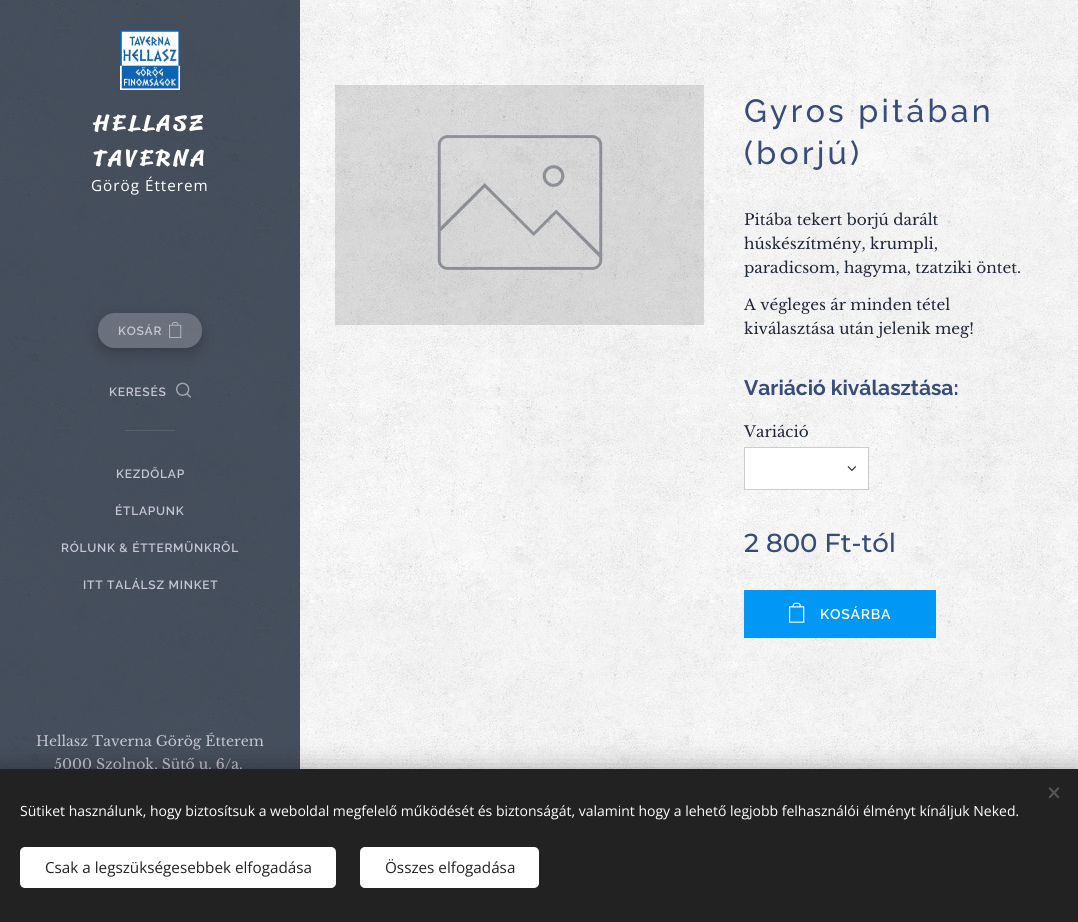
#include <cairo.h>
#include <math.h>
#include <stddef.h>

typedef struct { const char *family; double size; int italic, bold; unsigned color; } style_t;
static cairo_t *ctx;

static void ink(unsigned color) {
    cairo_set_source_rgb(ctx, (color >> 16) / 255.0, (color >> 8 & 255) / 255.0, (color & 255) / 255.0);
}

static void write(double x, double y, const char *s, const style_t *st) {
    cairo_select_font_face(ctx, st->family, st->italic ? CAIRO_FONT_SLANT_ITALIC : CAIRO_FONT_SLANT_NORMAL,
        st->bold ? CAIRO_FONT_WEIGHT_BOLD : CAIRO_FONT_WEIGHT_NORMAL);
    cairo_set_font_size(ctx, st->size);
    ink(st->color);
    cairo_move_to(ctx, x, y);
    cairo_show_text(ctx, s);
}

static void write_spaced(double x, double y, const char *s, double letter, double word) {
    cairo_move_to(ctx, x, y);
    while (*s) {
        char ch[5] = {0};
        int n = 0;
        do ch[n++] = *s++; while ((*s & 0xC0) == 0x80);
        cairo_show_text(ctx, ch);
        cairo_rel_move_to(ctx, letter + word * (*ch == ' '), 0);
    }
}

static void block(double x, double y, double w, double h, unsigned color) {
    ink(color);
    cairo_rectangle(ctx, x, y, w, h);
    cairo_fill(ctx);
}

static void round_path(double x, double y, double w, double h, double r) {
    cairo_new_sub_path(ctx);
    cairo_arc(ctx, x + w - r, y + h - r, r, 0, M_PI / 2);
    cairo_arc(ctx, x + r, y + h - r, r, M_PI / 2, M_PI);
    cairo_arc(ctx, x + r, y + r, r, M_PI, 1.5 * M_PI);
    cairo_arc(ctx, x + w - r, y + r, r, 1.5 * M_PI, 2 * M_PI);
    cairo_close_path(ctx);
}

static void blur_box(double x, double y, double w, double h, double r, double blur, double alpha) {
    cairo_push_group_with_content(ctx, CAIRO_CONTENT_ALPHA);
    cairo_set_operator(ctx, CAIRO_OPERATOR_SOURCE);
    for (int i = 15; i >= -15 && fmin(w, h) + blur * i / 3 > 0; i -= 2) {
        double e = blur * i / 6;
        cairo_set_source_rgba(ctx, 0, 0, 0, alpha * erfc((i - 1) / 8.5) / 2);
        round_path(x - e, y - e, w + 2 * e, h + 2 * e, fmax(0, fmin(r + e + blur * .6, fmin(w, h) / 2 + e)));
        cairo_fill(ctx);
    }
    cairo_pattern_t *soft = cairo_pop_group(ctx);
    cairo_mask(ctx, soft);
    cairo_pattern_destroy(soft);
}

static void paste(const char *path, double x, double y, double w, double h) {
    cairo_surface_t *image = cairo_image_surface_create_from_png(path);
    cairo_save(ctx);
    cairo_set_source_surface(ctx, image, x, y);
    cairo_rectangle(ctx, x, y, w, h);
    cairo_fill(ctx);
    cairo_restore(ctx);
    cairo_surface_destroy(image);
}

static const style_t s1 = {"Libre Baskerville", 15.25, 0, 0, 0x1f2737};
static const style_t s2 = {"Raleway", 21, 0, 1, 0x384c77};
static const style_t s3 = {"Montserrat Medium", 26, 0, 0, 0x384c77};
static const style_t s4 = {"Libre Baskerville", 14, 0, 0, 0xc5c7d1};
static const style_t s5 = {"Open Sans", 14, 0, 0, 0xffffff};
static const style_t s6 = {"Open Sans", 15.25, 0, 0, 0x222222};

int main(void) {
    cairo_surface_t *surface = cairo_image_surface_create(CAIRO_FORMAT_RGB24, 1078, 922);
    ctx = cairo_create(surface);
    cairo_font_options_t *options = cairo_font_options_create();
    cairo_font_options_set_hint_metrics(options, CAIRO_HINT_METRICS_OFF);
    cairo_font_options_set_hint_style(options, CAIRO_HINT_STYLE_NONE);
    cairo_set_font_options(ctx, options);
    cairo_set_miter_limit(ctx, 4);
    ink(0xffffff);
    cairo_paint(ctx);
    paste("pic1.png", 0, 0, 300, 769);
    paste("pic2.png", 120, 30, 60, 60);
    cairo_select_font_face(ctx, "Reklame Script", CAIRO_FONT_SLANT_NORMAL, CAIRO_FONT_WEIGHT_BOLD);
    cairo_set_font_size(ctx, 21);
    ink(0xffffff);
    write_spaced(94, 130, "HELLASZ", 4.25, 0);
    write_spaced(93, 165, "TAVERNA", 4.25, 0);
    cairo_select_font_face(ctx, "Open Sans", CAIRO_FONT_SLANT_NORMAL, CAIRO_FONT_WEIGHT_NORMAL);
    cairo_set_font_size(ctx, 15.25);
    write_spaced(91, 191, "Görög Étterem", 1, 0);
    cairo_save(ctx);
    cairo_set_fill_rule(ctx, CAIRO_FILL_RULE_EVEN_ODD);
    cairo_new_path(ctx);
    cairo_move_to(ctx, 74, 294);
    cairo_line_to(ctx, 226, 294);
    cairo_line_to(ctx, 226, 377);
    cairo_line_to(ctx, 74, 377);
    cairo_close_path(ctx);
    cairo_move_to(ctx, 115, 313);
    cairo_line_to(ctx, 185, 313);
    cairo_curve_to(ctx, 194.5, 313, 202, 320.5, 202, 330);
    cairo_line_to(ctx, 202, 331);
    cairo_curve_to(ctx, 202, 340.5, 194.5, 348, 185, 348);
    cairo_line_to(ctx, 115, 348);
    cairo_curve_to(ctx, 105.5, 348, 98, 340.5, 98, 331);
    cairo_line_to(ctx, 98, 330);
    cairo_curve_to(ctx, 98, 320.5, 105.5, 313, 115, 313);
    cairo_close_path(ctx);
    cairo_clip(ctx);
    ink(0x000000);
    blur_box(98, 318, 104, 35, 17, 7.5, 0.2);
    cairo_restore(ctx);
    cairo_set_source_rgba(ctx, 1, 1, 1, 0.2);
    round_path(98, 313, 104, 35, 17);
    cairo_fill(ctx);
    cairo_select_font_face(ctx, "Raleway SemiBold", CAIRO_FONT_SLANT_NORMAL, CAIRO_FONT_WEIGHT_NORMAL);
    cairo_set_font_size(ctx, 12);
    ink(0xc5c7d1);
    write_spaced(118, 335, "KOSÁR", 0.75, 0);
    paste("pic3.png", 169, 322, 13, 16);
    write_spaced(109, 396, "KERESÉS", 0.75, 0);
    paste("pic4.png", 176, 382, 15, 16);
    block(125, 430, 50, 1, 0x58606c);
    ink(0xc5c7d1);
    write_spaced(116, 478, "KEZDŐLAP", 0.75, 0);
    write_spaced(115, 515, "ÉTLAPUNK", 0.75, 0);
    write_spaced(61, 552, "RÓLUNK & ÉTTERMÜNKRŐL", 0.75, 0);
    write_spaced(83, 589, "ITT TALÁLSZ MINKET", 0.75, 0);
    paste("pic5.png", 300, 0, 778, 769);
    cairo_set_source_rgba(ctx, 0, 0, 0, 0.12);
    cairo_rectangle(ctx, 335, 85, 369, 240);
    cairo_fill(ctx);
    paste("pic6.png", 437, 135, 166, 135);
    cairo_select_font_face(ctx, "Raleway Medium", CAIRO_FONT_SLANT_NORMAL, CAIRO_FONT_WEIGHT_NORMAL);
    cairo_set_font_size(ctx, 32);
    ink(0x384c77);
    write_spaced(744, 122, "Gyros pitában", 3.25, 0);
    write_spaced(744, 164, "(borjú)", 3.25, 0);
    write(744, 225, "Pitába tekert borjú darált", &s1);
    write(744, 249, "húskészítmény, krumpli,", &s1);
    write(744, 273, "paradicsom, hagyma, tzatziki öntet.", &s1);
    write(744, 310, "A végleges ár minden tétel", &s1);
    write(744, 334, "kiválasztása után jelenik meg!", &s1);
    write(744, 395, "Variáció kiválasztása:", &s2);
    write(744, 437, "Variáció", &s1);
    ink(0xffffff);
    cairo_rectangle(ctx, 744.5, 447.5, 124, 42);
    cairo_fill_preserve(ctx);
    ink(0xcccccc);
    cairo_set_line_width(ctx, 1);
    cairo_stroke(ctx);
    paste("pic7.png", 847, 466, 10, 6);
    write(744, 552, "2 800 Ft-tól", &s3);
    block(744, 590, 192, 48, 0x0097f5);
    paste("pic8.png", 789, 602, 16, 21);
    cairo_select_font_face(ctx, "Raleway SemiBold", CAIRO_FONT_SLANT_NORMAL, CAIRO_FONT_WEIGHT_NORMAL);
    cairo_set_font_size(ctx, 14);
    ink(0xffffff);
    write_spaced(820, 619, "KOSÁRBA", 0.75, 0);
    write(36, 746, "Hellasz Taverna Görög Étterem", &s4);
    write(54, 769, "5000 Szolnok, Sütő u. 6/a.", &s4);
    ink(0x000000);
    blur_box(0, 769, 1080, 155, 0, 12.5, 0.33);
    block(0, 769, 1078, 153, 0x222222);
    ink(0x555555);
    cairo_new_path(ctx);
    cairo_move_to(ctx, 1048.5, 797);
    cairo_line_to(ctx, 1058, 787);
    cairo_line_to(ctx, 1059.5, 788.5);
    cairo_line_to(ctx, 1050, 798.5);
    cairo_close_path(ctx);
    cairo_fill(ctx);
    cairo_new_path(ctx);
    cairo_move_to(ctx, 1050, 787);
    cairo_line_to(ctx, 1059.5, 797);
    cairo_line_to(ctx, 1058, 798.5);
    cairo_line_to(ctx, 1048.5, 788.5);
    cairo_close_path(ctx);
    cairo_fill(ctx);
    write(20, 816, "Sütiket használunk, hogy biztosítsuk a weboldal megfelelő működését és biztonságát, valamint hogy a lehető legjobb felhasználói élményt kínáljuk Neked.", &s5);
    round_path(20, 847, 316, 41, 5);
    cairo_fill(ctx);
    write(45, 873, "Csak a legszükségesebbek elfogadása", &s6);
    ink(0xffffff);
    round_path(360, 847, 179, 41, 5);
    cairo_fill(ctx);
    write(385, 873, "Összes elfogadása", &s6);
    cairo_surface_write_to_png(surface, "screenshot.png");
    cairo_font_options_destroy(options);
    cairo_destroy(ctx);
    cairo_surface_destroy(surface);
    return 0;
}
